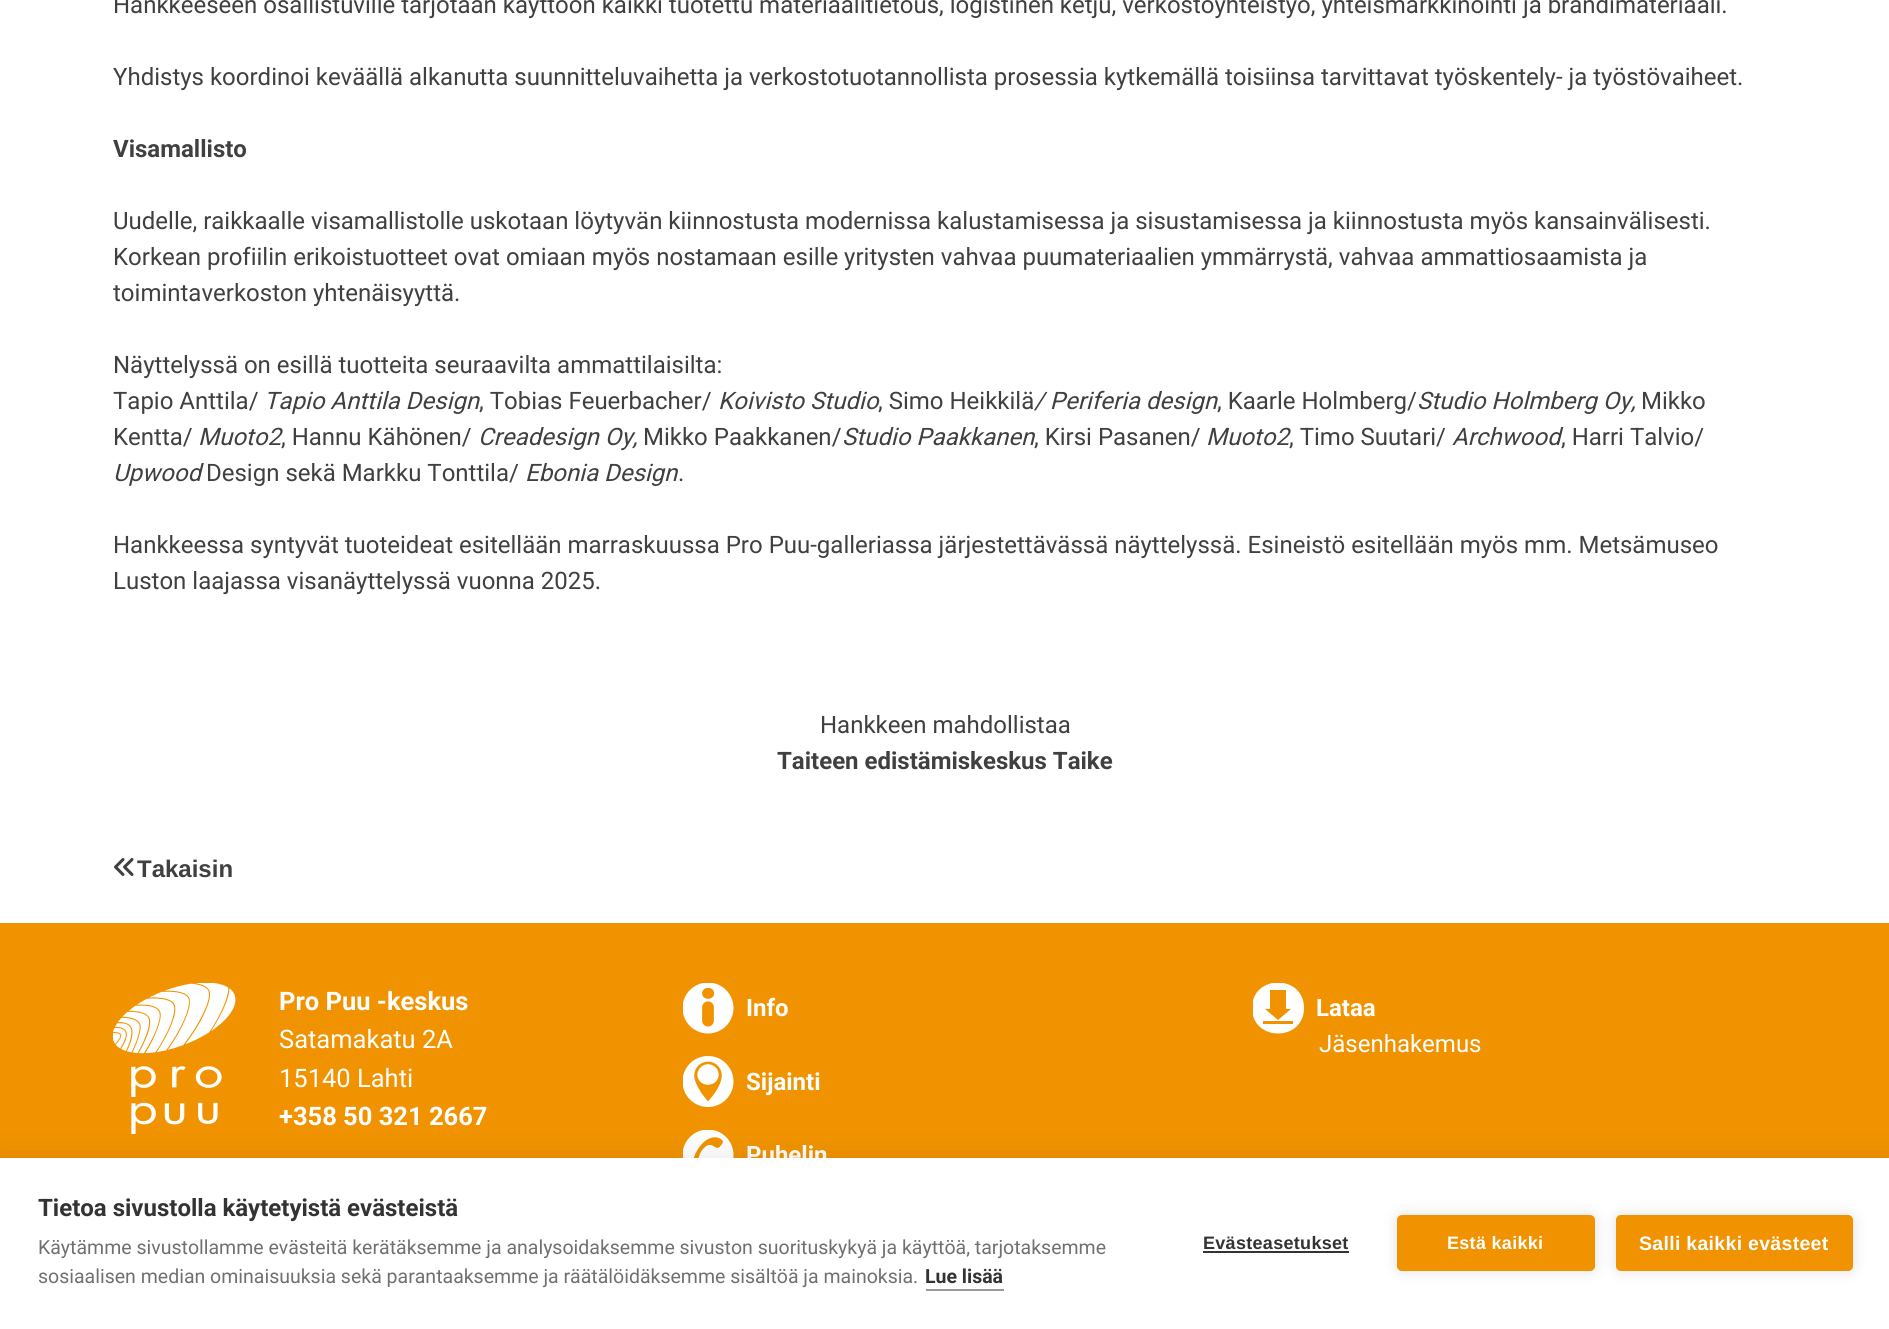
#include <cairo.h>
#include <math.h>
#include <stddef.h>

typedef struct { const char *family; double size; int italic, bold; unsigned color; } style_t;
static cairo_t *ctx;

static void ink(unsigned color) {
    cairo_set_source_rgb(ctx, (color >> 16) / 255.0, (color >> 8 & 255) / 255.0, (color & 255) / 255.0);
}

static void write(double x, double y, const char *s, const style_t *st) {
    cairo_select_font_face(ctx, st->family, st->italic ? CAIRO_FONT_SLANT_ITALIC : CAIRO_FONT_SLANT_NORMAL,
        st->bold ? CAIRO_FONT_WEIGHT_BOLD : CAIRO_FONT_WEIGHT_NORMAL);
    cairo_set_font_size(ctx, st->size);
    ink(st->color);
    cairo_move_to(ctx, x, y);
    cairo_show_text(ctx, s);
}

static void write_spaced(double x, double y, const char *s, double letter, double word) {
    cairo_move_to(ctx, x, y);
    while (*s) {
        char ch[5] = {0};
        int n = 0;
        do ch[n++] = *s++; while ((*s & 0xC0) == 0x80);
        cairo_show_text(ctx, ch);
        cairo_rel_move_to(ctx, letter + word * (*ch == ' '), 0);
    }
}

static void block(double x, double y, double w, double h, unsigned color) {
    ink(color);
    cairo_rectangle(ctx, x, y, w, h);
    cairo_fill(ctx);
}

static void round_path(double x, double y, double w, double h, double r) {
    cairo_new_sub_path(ctx);
    cairo_arc(ctx, x + w - r, y + h - r, r, 0, M_PI / 2);
    cairo_arc(ctx, x + r, y + h - r, r, M_PI / 2, M_PI);
    cairo_arc(ctx, x + r, y + r, r, M_PI, 1.5 * M_PI);
    cairo_arc(ctx, x + w - r, y + r, r, 1.5 * M_PI, 2 * M_PI);
    cairo_close_path(ctx);
}

static void blur_box(double x, double y, double w, double h, double r, double blur, double alpha) {
    cairo_push_group_with_content(ctx, CAIRO_CONTENT_ALPHA);
    cairo_set_operator(ctx, CAIRO_OPERATOR_SOURCE);
    for (int i = 15; i >= -15 && fmin(w, h) + blur * i / 3 > 0; i -= 2) {
        double e = blur * i / 6;
        cairo_set_source_rgba(ctx, 0, 0, 0, alpha * erfc((i - 1) / 8.5) / 2);
        round_path(x - e, y - e, w + 2 * e, h + 2 * e, fmax(0, fmin(r + e + blur * .6, fmin(w, h) / 2 + e)));
        cairo_fill(ctx);
    }
    cairo_pattern_t *soft = cairo_pop_group(ctx);
    cairo_mask(ctx, soft);
    cairo_pattern_destroy(soft);
}

static void paste(const char *path, double x, double y, double w, double h) {
    cairo_surface_t *image = cairo_image_surface_create_from_png(path);
    cairo_save(ctx);
    cairo_set_source_surface(ctx, image, x, y);
    cairo_rectangle(ctx, x, y, w, h);
    cairo_fill(ctx);
    cairo_restore(ctx);
    cairo_surface_destroy(image);
}

static const style_t s1 = {"Roboto", 24, 0, 0, 0x404040};
static const style_t s2 = {"Roboto", 24, 0, 1, 0x404040};
static const style_t s3 = {"Roboto", 24, 1, 0, 0x404040};
static const style_t s4 = {"Liberation Sans", 24, 0, 1, 0x404040};
static const style_t s5 = {"Roboto", 25.5, 0, 1, 0xffffff};
static const style_t s6 = {"Roboto", 25.5, 0, 0, 0xffffff};
static const style_t s7 = {"Roboto", 24, 0, 1, 0xffffff};
static const style_t s8 = {"Roboto", 24, 0, 0, 0xffffff};
static const style_t s9 = {"Roboto", 24, 0, 1, 0x333333};
static const style_t s10 = {"Roboto", 19.5, 0, 0, 0x707070};
static const style_t s11 = {"Roboto", 19.5, 0, 1, 0x333333};

int main(void) {
    cairo_surface_t *surface = cairo_image_surface_create(CAIRO_FORMAT_RGB24, 1889, 1329);
    ctx = cairo_create(surface);
    cairo_font_options_t *options = cairo_font_options_create();
    cairo_font_options_set_hint_metrics(options, CAIRO_HINT_METRICS_OFF);
    cairo_font_options_set_hint_style(options, CAIRO_HINT_STYLE_NONE);
    cairo_set_font_options(ctx, options);
    cairo_set_miter_limit(ctx, 4);
    ink(0xffffff);
    cairo_paint(ctx);
    write(113, 13, "Hankkeeseen osallistuville tarjotaan käyttöön kaikki tuotettu materiaalitietous, logistinen ketju, verkostoyhteistyö, yhteismarkkinointi ja brändimateriaali.", &s1);
    write(113, 85, "Yhdistys koordinoi keväällä alkanutta suunnitteluvaihetta ja verkostotuotannollista prosessia kytkemällä toisiinsa tarvittavat työskentely- ja työstövaiheet.", &s1);
    write(113, 157, "Visamallisto", &s2);
    write(113, 229, "Uudelle, raikkaalle visamallistolle uskotaan löytyvän kiinnostusta modernissa kalustamisessa ja sisustamisessa ja kiinnostusta myös kansainvälisesti.", &s1);
    write(113, 265, "Korkean profiilin erikoistuotteet ovat omiaan myös nostamaan esille yritysten vahvaa puumateriaalien ymmärrystä, vahvaa ammattiosaamista ja", &s1);
    write(113, 301, "toimintaverkoston yhtenäisyyttä.", &s1);
    write(113, 373, "Näyttelyssä on esillä tuotteita seuraavilta ammattilaisilta:", &s1);
    write(113, 409, "Tapio Anttila/", &s1);
    write(264, 409, "Tapio Anttila Design", &s3);
    write(479, 409, ", Tobias Feuerbacher/", &s1);
    write(718, 409, "Koivisto Studio", &s3);
    write(878, 409, ", Simo Heikkilä", &s1);
    write(1034, 409, "/ Periferia design", &s3);
    write(1217, 409, ", Kaarle Holmberg/", &s1);
    write(1417, 409, "Studio Holmberg Oy,", &s3);
    write(1641, 409, "Mikko", &s1);
    write(113, 445, "Kentta/", &s1);
    write(198, 445, "Muoto2", &s3);
    write(281, 445, ", Hannu Kähönen/", &s1);
    write(478, 445, "Creadesign Oy,", &s3);
    write(643, 445, "Mikko Paakkanen/", &s1);
    write(842, 445, "Studio Paakkanen", &s3);
    write(1034, 445, ", Kirsi Pasanen/", &s1);
    write(1206, 445, "Muoto2", &s3);
    write(1289, 445, ", Timo Suutari/", &s1);
    write(1452, 445, "Archwood", &s3);
    write(1561, 445, ", Harri Talvio/", &s1);
    write(113, 481, "Upwood", &s3);
    write(206, 481, "Design sekä Markku Tonttila/", &s1);
    write(525, 481, "Ebonia Design", &s3);
    write(678, 481, ".", &s1);
    write(113, 553, "Hankkeessa syntyvät tuoteideat esitellään marraskuussa Pro Puu-galleriassa järjestettävässä näyttelyssä. Esineistö esitellään myös mm. Metsämuseo", &s1);
    write(113, 589, "Luston laajassa visanäyttelyssä vuonna 2025.", &s1);
    write(820, 733, "Hankkeen mahdollistaa", &s1);
    write(777, 769, "Taiteen edistämiskeskus Taike", &s2);
    paste("pic1.png", 114, 858, 20, 18);
    write(137, 877, "Takaisin", &s4);
    block(0, 923, 1889, 235, 0xf19300);
    paste("pic2.png", 113, 983, 123, 151);
    write(279, 1010, "Pro Puu -keskus", &s5);
    write(279, 1048, "Satamakatu 2A", &s6);
    write(279, 1087, "15140 Lahti", &s6);
    write(279, 1125, "+358 50 321 2667", &s5);
    paste("pic3.png", 683, 983, 51, 51);
    write(746, 1016, "Info", &s7);
    paste("pic4.png", 683, 1056, 51, 51);
    write(746, 1090, "Sijainti", &s7);
    paste("pic5.png", 683, 1130, 51, 28);
    write(746, 1163, "Puhelin", &s7);
    cairo_save(ctx);
    cairo_rectangle(ctx, 1253, 983, 51, 51);
    cairo_clip(ctx);
    cairo_new_path(ctx);
    cairo_move_to(ctx, 1263, 1021);
    cairo_line_to(ctx, 1293, 1021);
    cairo_line_to(ctx, 1293, 1024);
    cairo_line_to(ctx, 1263, 1024);
    cairo_close_path(ctx);
    cairo_move_to(ctx, 1265, 1009);
    cairo_line_to(ctx, 1270, 1009);
    cairo_line_to(ctx, 1270, 990);
    cairo_line_to(ctx, 1286, 990);
    cairo_line_to(ctx, 1286, 1009);
    cairo_line_to(ctx, 1291, 1009);
    cairo_line_to(ctx, 1278, 1020);
    cairo_close_path(ctx);
    cairo_move_to(ctx, 1252, 1008);
    cairo_curve_to(ctx, 1252, 1042, 1304, 1042, 1304, 1008);
    cairo_curve_to(ctx, 1304, 974, 1252, 974, 1252, 1008);
    cairo_fill(ctx);
    cairo_restore(ctx);
    write(1316, 1016, "Lataa", &s7);
    write(1319, 1052, "Jäsenhakemus", &s8);
    ink(0x000000);
    blur_box(0, 1158, 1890, 171, 0, 15, 0.1);
    block(0, 1158, 1889, 171, 0xffffff);
    write(38, 1216, "Tietoa sivustolla käytetyistä evästeistä", &s9);
    write(38, 1254, "Käytämme sivustollamme evästeitä kerätäksemme ja analysoidaksemme sivuston suorituskykyä ja käyttöä, tarjotaksemme", &s10);
    write(38, 1283, "sosiaalisen median ominaisuuksia sekä parantaaksemme ja räätälöidäksemme sisältöä ja mainoksia.", &s10);
    write(925, 1283, "Lue lisää", &s11);
    block(926, 1289, 78, 2, 0x999999);
    cairo_select_font_face(ctx, "Liberation Sans", CAIRO_FONT_SLANT_NORMAL, CAIRO_FONT_WEIGHT_BOLD);
    cairo_set_font_size(ctx, 18);
    ink(0x333333);
    write_spaced(1203, 1249, "Evästeasetukset", 0.3, 0);
    block(1203, 1251, 146, 2, 0x333333);
    ink(0x000000);
    blur_box(1397, 1215, 198, 56, 5, 7.5, 0.12);
    ink(0xf19200);
    round_path(1397, 1215, 198, 56, 5);
    cairo_fill(ctx);
    ink(0xffffff);
    write_spaced(1447, 1249, "Estä kaikki", 0.3, 0);
    ink(0x000000);
    blur_box(1616, 1215, 237, 56, 5, 7.5, 0.12);
    ink(0xf19200);
    round_path(1616, 1215, 237, 56, 5);
    cairo_fill(ctx);
    cairo_set_font_size(ctx, 19.5);
    ink(0xffffff);
    write_spaced(1639, 1250, "Salli kaikki evästeet", 0.3, 0);
    cairo_surface_write_to_png(surface, "screenshot.png");
    cairo_font_options_destroy(options);
    cairo_destroy(ctx);
    cairo_surface_destroy(surface);
    return 0;
}
